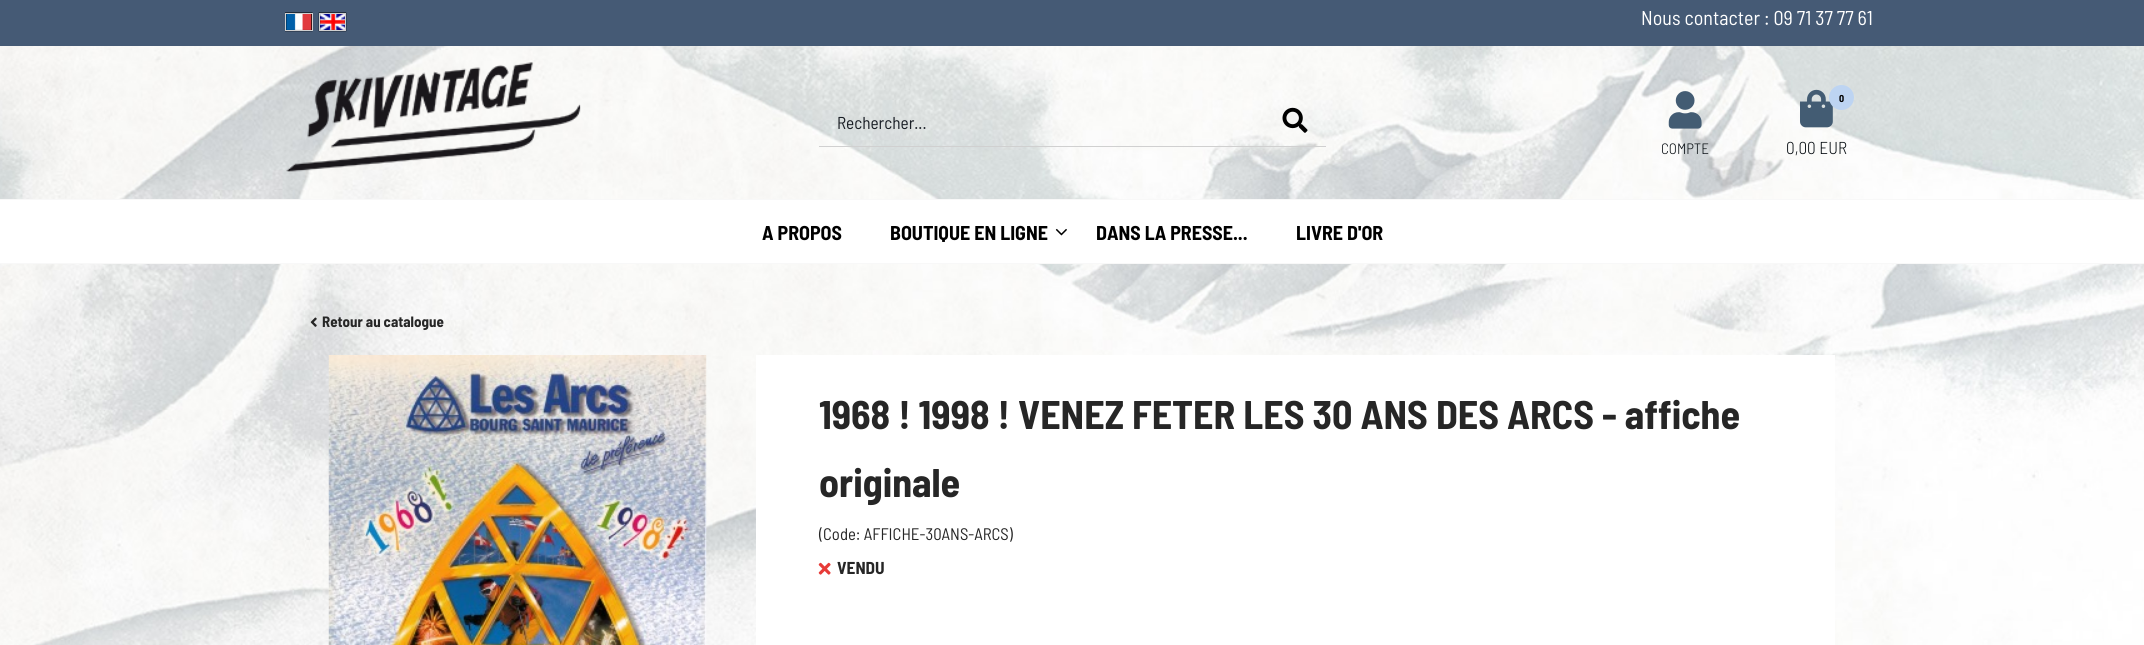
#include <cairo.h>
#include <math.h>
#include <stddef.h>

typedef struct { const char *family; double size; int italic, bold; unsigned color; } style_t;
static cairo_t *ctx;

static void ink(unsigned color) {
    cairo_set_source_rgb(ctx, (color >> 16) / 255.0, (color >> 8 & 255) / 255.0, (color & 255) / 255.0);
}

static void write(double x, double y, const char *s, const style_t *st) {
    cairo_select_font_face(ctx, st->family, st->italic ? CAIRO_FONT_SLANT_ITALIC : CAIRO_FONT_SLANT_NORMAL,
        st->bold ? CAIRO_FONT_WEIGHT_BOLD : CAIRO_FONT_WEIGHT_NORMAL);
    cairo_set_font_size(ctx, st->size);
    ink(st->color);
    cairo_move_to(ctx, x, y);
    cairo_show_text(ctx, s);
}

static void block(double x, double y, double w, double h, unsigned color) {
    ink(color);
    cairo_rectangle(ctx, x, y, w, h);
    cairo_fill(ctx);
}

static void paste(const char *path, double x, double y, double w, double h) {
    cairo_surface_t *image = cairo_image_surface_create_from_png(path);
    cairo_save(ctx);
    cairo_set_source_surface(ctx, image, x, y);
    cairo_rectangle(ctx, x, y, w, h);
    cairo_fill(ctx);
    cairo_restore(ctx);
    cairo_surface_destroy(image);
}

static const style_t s1 = {"Barlow Semi Condensed", 20, 0, 0, 0xffffff};
static const style_t s2 = {"Barlow Semi Condensed", 17.25, 0, 0, 0x1a1f26};
static const style_t s3 = {"Barlow Semi Condensed Light", 15, 0, 0, 0x03090e};
static const style_t s4 = {"Barlow Semi Condensed", 10, 0, 1, 0x000000};
static const style_t s5 = {"Barlow Semi Condensed Light", 17.25, 0, 0, 0x03090e};
static const style_t s6 = {"Barlow Semi Condensed", 20, 0, 1, 0x000000};
static const style_t s7 = {"Barlow Semi Condensed", 15, 0, 1, 0x262626};
static const style_t s8 = {"Barlow Semi Condensed", 40, 0, 1, 0x262626};
static const style_t s9 = {"Barlow Semi Condensed", 16.75, 0, 0, 0x262626};
static const style_t s10 = {"Barlow Semi Condensed", 17.25, 0, 1, 0x262626};

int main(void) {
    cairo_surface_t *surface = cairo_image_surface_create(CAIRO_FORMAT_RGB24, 2144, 645);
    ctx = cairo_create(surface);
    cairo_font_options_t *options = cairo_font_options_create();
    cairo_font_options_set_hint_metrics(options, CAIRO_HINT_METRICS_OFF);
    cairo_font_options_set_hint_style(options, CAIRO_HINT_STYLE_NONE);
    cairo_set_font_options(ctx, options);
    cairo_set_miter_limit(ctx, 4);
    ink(0xffffff);
    cairo_paint(ctx);
    paste("pic1.png", 0, 46, 2144, 599);
    block(0, 0, 2144, 46, 0x455a75);
    paste("pic2.png", 285, 12, 28, 20);
    cairo_rectangle(ctx, 285.5, 13.5, 27, 17);
    ink(0xd0d0d0);
    cairo_set_line_width(ctx, 1);
    cairo_stroke(ctx);
    paste("pic3.png", 318, 12, 29, 20);
    cairo_rectangle(ctx, 319.5, 13.5, 26, 17);
    cairo_stroke(ctx);
    write(1641, 25, "Nous contacter : 09 71 37 77 61", &s1);
    paste("pic4.png", 286, 62, 295, 110);
    block(819, 146, 507, 1, 0xd0d0d0);
    write(837, 129, "Rechercher...", &s2);
    paste("pic5.png", 1282, 107, 26, 26);
    paste("pic6.png", 1668, 91, 34, 38);
    write(1661, 154, "COMPTE", &s3);
    paste("pic7.png", 1800, 89, 33, 39);
    ink(0xbdd4f2);
    cairo_arc(ctx, 1841.5, 97.5, 12.5, 0, 2 * M_PI);
    cairo_fill(ctx);
    write(1839, 102, "0", &s4);
    write(1786, 154, "0,00 EUR", &s5);
    block(0, 200, 2144, 63, 0xffffff);
    block(0, 199, 2144, 1, 0xf8f8f8);
    block(0, 263, 2144, 1, 0xf8f8f8);
    write(762, 240, "A PROPOS", &s6);
    write(890, 240, "BOUTIQUE EN LIGNE", &s6);
    paste("pic8.png", 1055, 228, 12, 8);
    write(1096, 240, "DANS LA PRESSE...", &s6);
    write(1296, 240, "LIVRE D'OR", &s6);
    paste("pic9.png", 310, 317, 7, 10);
    write(322, 327, "Retour au catalogue", &s7);
    paste("pic10.png", 328, 355, 379, 290);
    block(756, 355, 1079, 290, 0xffffff);
    write(819, 429, "1968 ! 1998 ! VENEZ FETER LES 30 ANS DES ARCS - affiche", &s8);
    write(819, 497, "originale", &s8);
    write(819, 540, "(Code: AFFICHE-30ANS-ARCS)", &s9);
    paste("pic11.png", 818, 562, 13, 13);
    write(837, 574, "VENDU", &s10);
    cairo_surface_write_to_png(surface, "screenshot.png");
    cairo_font_options_destroy(options);
    cairo_destroy(ctx);
    cairo_surface_destroy(surface);
    return 0;
}
